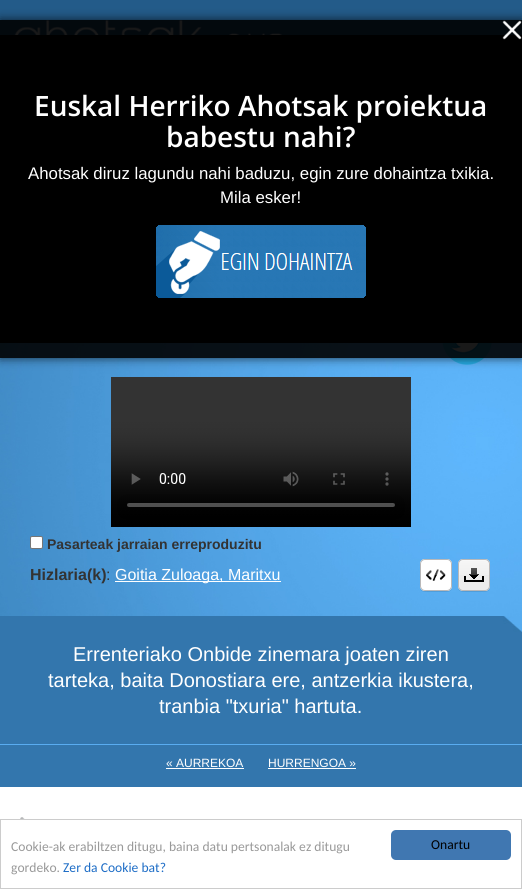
#include <cairo.h>
#include <math.h>
#include <stddef.h>

typedef struct { const char *family; double size; int italic, bold; unsigned color; } style_t;
static cairo_t *ctx;

static void ink(unsigned color) {
    cairo_set_source_rgb(ctx, (color >> 16) / 255.0, (color >> 8 & 255) / 255.0, (color & 255) / 255.0);
}

static void write(double x, double y, const char *s, const style_t *st) {
    cairo_select_font_face(ctx, st->family, st->italic ? CAIRO_FONT_SLANT_ITALIC : CAIRO_FONT_SLANT_NORMAL,
        st->bold ? CAIRO_FONT_WEIGHT_BOLD : CAIRO_FONT_WEIGHT_NORMAL);
    cairo_set_font_size(ctx, st->size);
    ink(st->color);
    cairo_move_to(ctx, x, y);
    cairo_show_text(ctx, s);
}

static void block(double x, double y, double w, double h, unsigned color) {
    ink(color);
    cairo_rectangle(ctx, x, y, w, h);
    cairo_fill(ctx);
}

static void round_path(double x, double y, double w, double h, double r) {
    cairo_new_sub_path(ctx);
    cairo_arc(ctx, x + w - r, y + h - r, r, 0, M_PI / 2);
    cairo_arc(ctx, x + r, y + h - r, r, M_PI / 2, M_PI);
    cairo_arc(ctx, x + r, y + r, r, M_PI, 1.5 * M_PI);
    cairo_arc(ctx, x + w - r, y + r, r, 1.5 * M_PI, 2 * M_PI);
    cairo_close_path(ctx);
}

static void blur_box(double x, double y, double w, double h, double r, double blur, double alpha) {
    cairo_push_group_with_content(ctx, CAIRO_CONTENT_ALPHA);
    cairo_set_operator(ctx, CAIRO_OPERATOR_SOURCE);
    for (int i = 15; i >= -15 && fmin(w, h) + blur * i / 3 > 0; i -= 2) {
        double e = blur * i / 6;
        cairo_set_source_rgba(ctx, 0, 0, 0, alpha * erfc((i - 1) / 8.5) / 2);
        round_path(x - e, y - e, w + 2 * e, h + 2 * e, fmax(0, fmin(r + e + blur * .6, fmin(w, h) / 2 + e)));
        cairo_fill(ctx);
    }
    cairo_pattern_t *soft = cairo_pop_group(ctx);
    cairo_mask(ctx, soft);
    cairo_pattern_destroy(soft);
}

static void paste(const char *path, double x, double y, double w, double h) {
    cairo_surface_t *image = cairo_image_surface_create_from_png(path);
    cairo_save(ctx);
    cairo_set_source_surface(ctx, image, x, y);
    cairo_rectangle(ctx, x, y, w, h);
    cairo_fill(ctx);
    cairo_restore(ctx);
    cairo_surface_destroy(image);
}

static const style_t s1 = {"Open Sans SemiBold", 28, 0, 0, 0xffffff};
static const style_t s2 = {"Liberation Sans", 16.8, 0, 0, 0xffffff};
static const style_t s3 = {"Liberation Sans", 14, 0, 1, 0x333333};
static const style_t s4 = {"Liberation Sans", 16, 0, 1, 0x333333};
static const style_t s5 = {"Liberation Sans", 16, 0, 0, 0x333333};
static const style_t s6 = {"Liberation Sans", 16, 0, 0, 0xffffff};
static const style_t s7 = {"Liberation Sans", 20, 0, 0, 0xffffff};
static const style_t s8 = {"Liberation Sans", 12, 0, 0, 0xffffff};
static const style_t s9 = {"Carlito", 13.6, 0, 0, 0x999999};
static const style_t s10 = {"Carlito", 13.6, 0, 0, 0x1e6dc6};
static const style_t s11 = {"Carlito", 13.6, 0, 0, 0x000000};

int main(void) {
    cairo_surface_t *surface = cairo_image_surface_create(CAIRO_FORMAT_RGB24, 522, 889);
    ctx = cairo_create(surface);
    cairo_font_options_t *options = cairo_font_options_create();
    cairo_font_options_set_hint_metrics(options, CAIRO_HINT_METRICS_OFF);
    cairo_font_options_set_hint_style(options, CAIRO_HINT_STYLE_NONE);
    cairo_set_font_options(ctx, options);
    cairo_set_miter_limit(ctx, 4);
    cairo_pattern_t *gradient;
    ink(0xffffff);
    cairo_paint(ctx);
    block(0, 0, 522, 35, 0x235b89);
    paste("pic3.png", 14, 20, 270, 15);
    paste("pic4.png", 0, 343, 522, 273);
    paste("pic5.png", 442, 343, 50, 22);
    cairo_save(ctx);
    cairo_set_fill_rule(ctx, CAIRO_FILL_RULE_EVEN_ODD);
    cairo_new_path(ctx);
    cairo_move_to(ctx, 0, 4);
    cairo_line_to(ctx, 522, 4);
    cairo_line_to(ctx, 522, 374);
    cairo_line_to(ctx, 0, 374);
    cairo_close_path(ctx);
    cairo_move_to(ctx, 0, 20);
    cairo_line_to(ctx, 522, 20);
    cairo_line_to(ctx, 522, 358);
    cairo_line_to(ctx, 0, 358);
    cairo_close_path(ctx);
    cairo_clip(ctx);
    ink(0x010101);
    blur_box(0, 20, 522, 338, 0, 5, 0.7);
    cairo_restore(ctx);
    cairo_set_source_rgba(ctx, 0.004, 0.004, 0.004, 0.9);
    cairo_rectangle(ctx, 0, 20, 522, 338);
    cairo_fill(ctx);
    block(0, 35, 522, 308, 0x000000);
    paste("pic1.png", 502, 20, 20, 20);
    write(34, 116, "Euskal Herriko Ahotsak proiektua", &s1);
    write(166, 147, "babestu nahi?", &s1);
    write(28, 179, "Ahotsak diruz lagundu nahi baduzu, egin zure dohaintza txikia.", &s2);
    write(220, 203, "Mila esker!", &s2);
    paste("pic2.png", 156, 225, 210, 73);
    paste("pic6.png", 111, 377, 300, 150);
    round_path(30.5, 536.5, 12, 12, 1.5);
    cairo_fill_preserve(ctx);
    ink(0x767676);
    cairo_set_line_width(ctx, 1);
    cairo_stroke(ctx);
    write(47, 549, "Pasarteak jarraian erreproduzitu", &s3);
    write(30, 580, "Hizlaria(k)", &s4);
    write(106, 580, ":", &s5);
    block(115, 581, 166, 1, 0xffffff);
    write(115, 580, "Goitia Zuloaga, Maritxu", &s6);
    cairo_set_source_rgba(ctx, 0, 0, 0, 0.1);
    cairo_new_path(ctx);
    cairo_move_to(ctx, 420, 586);
    cairo_curve_to(ctx, 420, 592, 423.5, 592, 428.5, 592);
    cairo_line_to(ctx, 443.5, 592);
    cairo_curve_to(ctx, 448.5, 592, 452, 592, 452, 586);
    cairo_curve_to(ctx, 452, 589, 450, 591, 447, 591);
    cairo_line_to(ctx, 425, 591);
    cairo_curve_to(ctx, 422, 591, 420, 589, 420, 586);
    cairo_close_path(ctx);
    cairo_fill(ctx);
    ink(0xffffff);
    round_path(420, 559, 32, 32, 5);
    cairo_fill(ctx);
    paste("pic7.png", 426, 569, 20, 12);
    round_path(420.5, 559.5, 31, 31, 4.5);
    ink(0xb8b8b9);
    cairo_stroke(ctx);
    gradient = cairo_pattern_create_linear(436, 560, 436, 575);
    cairo_pattern_add_color_stop_rgba(gradient, 0, 1, 1, 1, 0.5);
    cairo_pattern_add_color_stop_rgba(gradient, 1, 1, 1, 1, 0.2);
    cairo_set_source(ctx, gradient);
    cairo_pattern_destroy(gradient);
    cairo_new_path(ctx);
    cairo_move_to(ctx, 426, 560);
    cairo_line_to(ctx, 446, 560);
    cairo_curve_to(ctx, 449, 560, 451, 562, 451, 565);
    cairo_line_to(ctx, 451, 575);
    cairo_line_to(ctx, 421, 575);
    cairo_line_to(ctx, 421, 565);
    cairo_curve_to(ctx, 421, 562, 423, 560, 426, 560);
    cairo_close_path(ctx);
    cairo_fill(ctx);
    ink(0x509dd9);
    cairo_new_path(ctx);
    cairo_move_to(ctx, 458, 586);
    cairo_curve_to(ctx, 458, 592, 461.5, 592, 466.5, 592);
    cairo_line_to(ctx, 481.5, 592);
    cairo_curve_to(ctx, 486.5, 592, 490, 592, 490, 586);
    cairo_curve_to(ctx, 490, 589, 488, 591, 485, 591);
    cairo_line_to(ctx, 463, 591);
    cairo_curve_to(ctx, 460, 591, 458, 589, 458, 586);
    cairo_close_path(ctx);
    cairo_fill(ctx);
    ink(0xececec);
    round_path(458, 559, 32, 32, 5);
    cairo_fill(ctx);
    paste("pic8.png", 464, 568, 20, 14);
    ink(0xf2f2f2);
    cairo_new_path(ctx);
    cairo_move_to(ctx, 463, 561);
    cairo_line_to(ctx, 485, 561);
    cairo_curve_to(ctx, 487, 561, 489, 563, 489, 565);
    cairo_curve_to(ctx, 489, 559.5, 485.5, 560, 481.5, 560);
    cairo_line_to(ctx, 466.5, 560);
    cairo_curve_to(ctx, 462.5, 560, 459, 559.5, 459, 565);
    cairo_curve_to(ctx, 459, 563, 461, 561, 463, 561);
    cairo_close_path(ctx);
    cairo_fill(ctx);
    round_path(458.5, 559.5, 31, 31, 4.5);
    ink(0xb8b8b9);
    cairo_stroke(ctx);
    gradient = cairo_pattern_create_linear(474, 560, 474, 575);
    cairo_pattern_add_color_stop_rgba(gradient, 0, 1, 1, 1, 0.5);
    cairo_pattern_add_color_stop_rgba(gradient, 1, 1, 1, 1, 0.2);
    cairo_set_source(ctx, gradient);
    cairo_pattern_destroy(gradient);
    cairo_new_path(ctx);
    cairo_move_to(ctx, 464, 560);
    cairo_line_to(ctx, 484, 560);
    cairo_curve_to(ctx, 487, 560, 489, 562, 489, 565);
    cairo_line_to(ctx, 489, 575);
    cairo_line_to(ctx, 459, 575);
    cairo_line_to(ctx, 459, 565);
    cairo_curve_to(ctx, 459, 562, 461, 560, 464, 560);
    cairo_close_path(ctx);
    cairo_fill(ctx);
    block(0, 616, 522, 128, 0x3376ad);
    paste("pic9.png", 503, 616, 19, 16);
    write(73, 661, "Errenteriako Onbide zinemara joaten ziren", &s7);
    write(48, 687, "tarteka, baita Donostiara ere, antzerkia ikustera,", &s7);
    write(159, 713, "tranbia \"txuria\" hartuta.", &s7);
    block(0, 745, 522, 42, 0x3376ad);
    block(0, 744, 522, 1, 0x59acf0);
    write(166, 767, "« AURREKOA", &s8);
    block(166, 768, 78, 1, 0xffffff);
    write(268, 767, "HURRENGOA »", &s8);
    block(268, 768, 88, 1, 0xffffff);
    paste("pic10.png", 20, 817, 9, 2);
    cairo_rectangle(ctx, 0.5, 819.5, 521, 69);
    ink(0xcccccc);
    cairo_stroke(ctx);
    write(11, 851, "Cookie-ak erabiltzen ditugu, baina datu pertsonalak ez ditugu", &s9);
    write(11, 872, "gordeko.", &s9);
    write(63, 872, "Zer da Cookie bat?", &s10);
    ink(0x4077b1);
    round_path(391, 830, 120, 30, 5);
    cairo_fill(ctx);
    write(431, 849, "Onartu", &s11);
    cairo_surface_write_to_png(surface, "screenshot.png");
    cairo_font_options_destroy(options);
    cairo_destroy(ctx);
    cairo_surface_destroy(surface);
    return 0;
}
